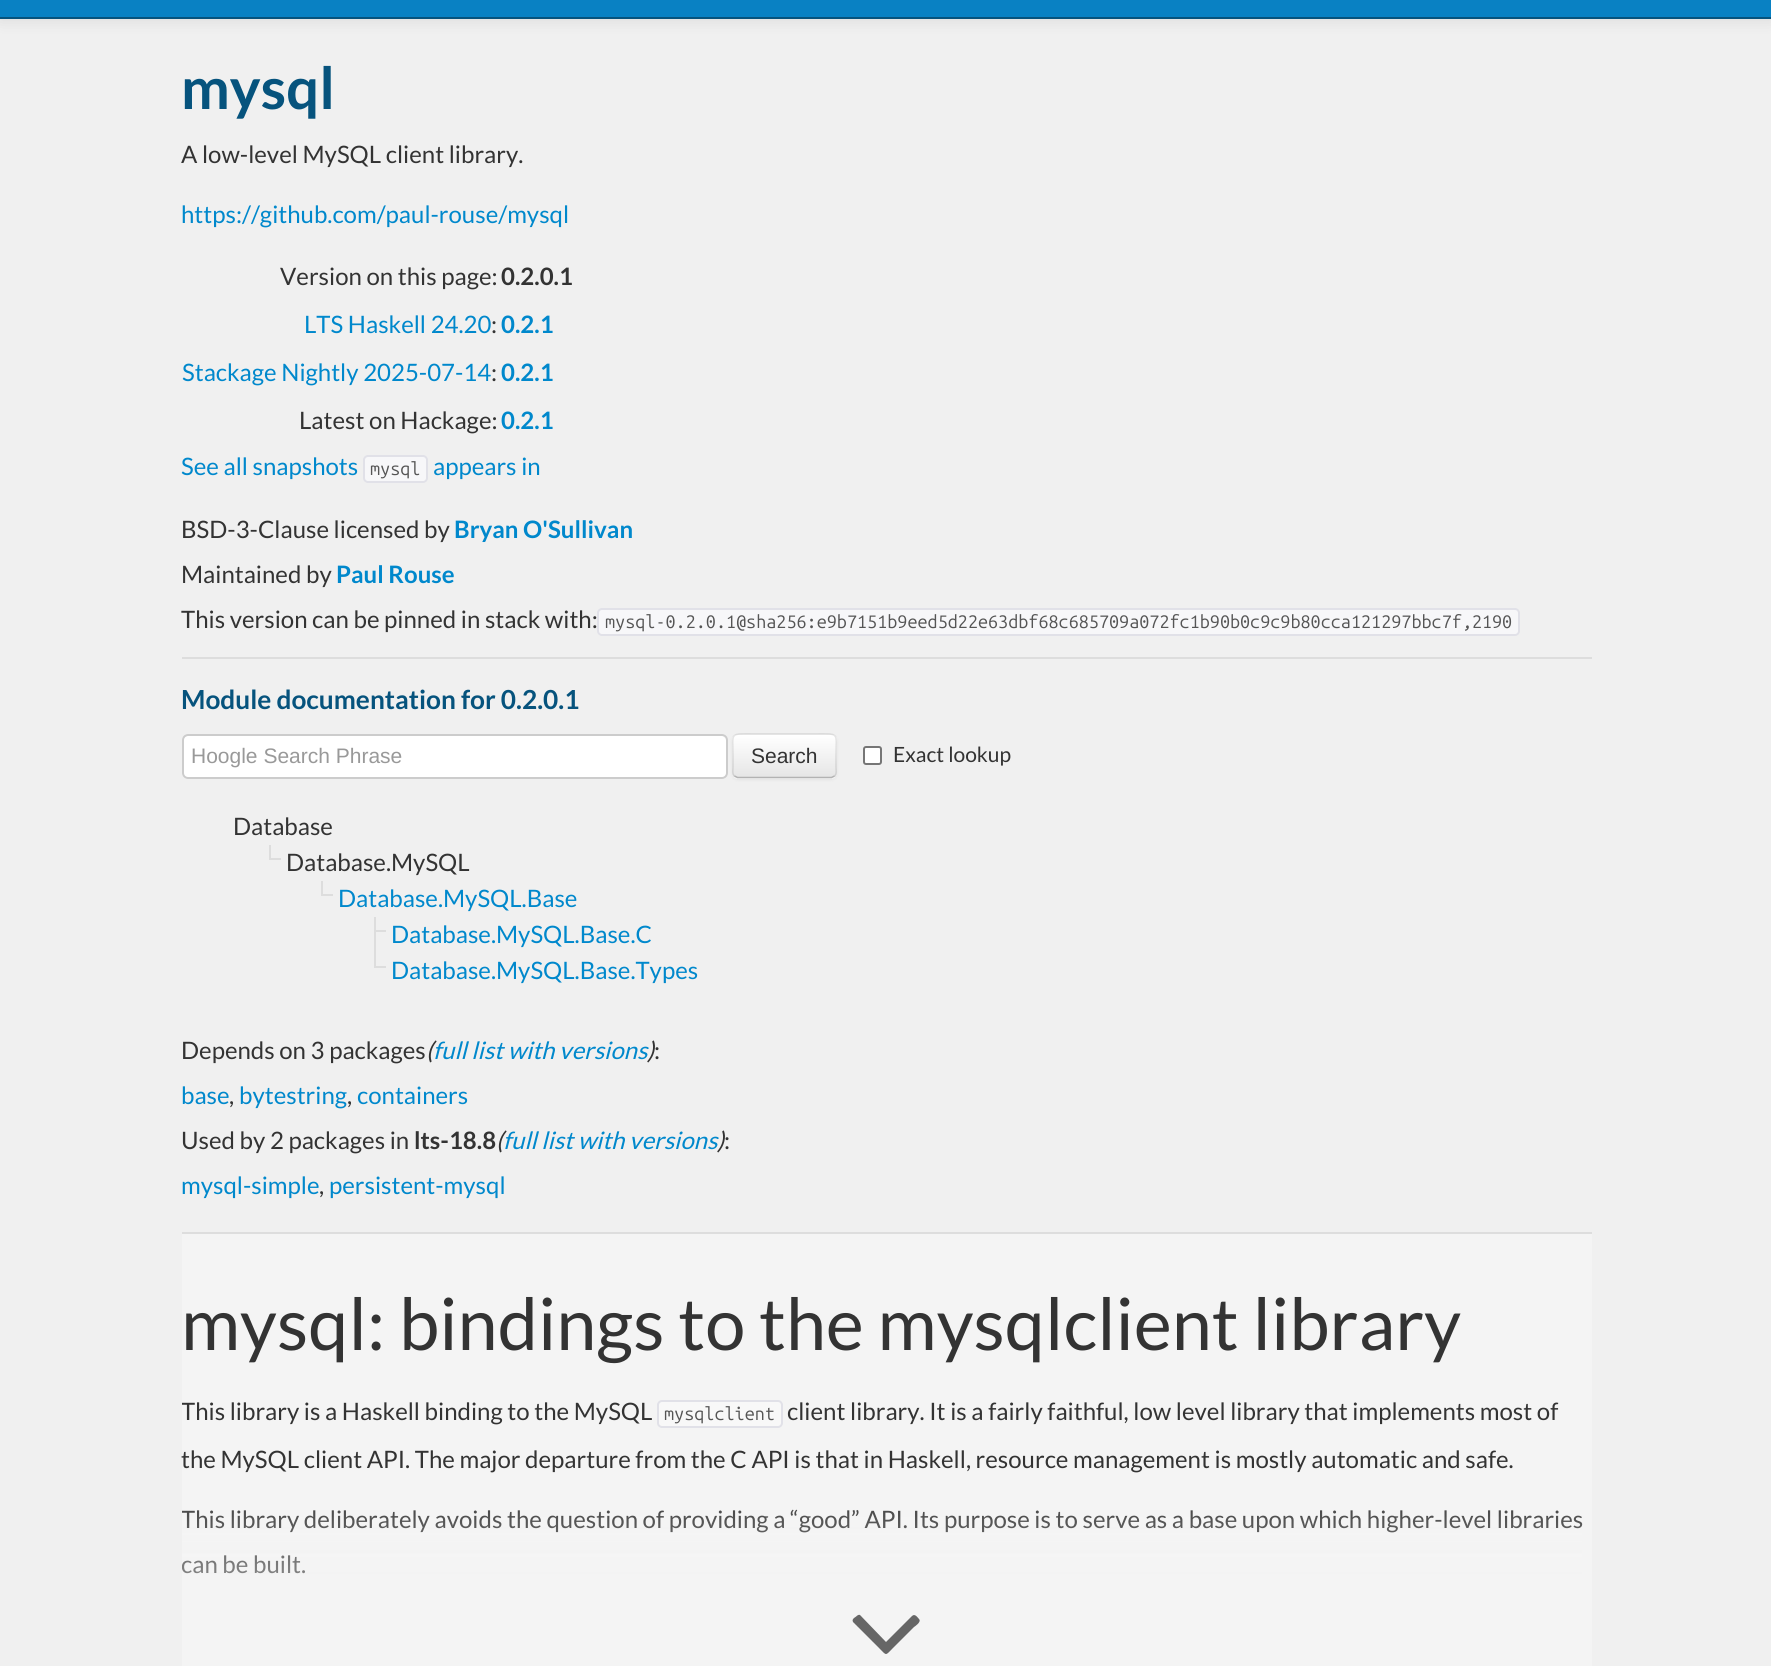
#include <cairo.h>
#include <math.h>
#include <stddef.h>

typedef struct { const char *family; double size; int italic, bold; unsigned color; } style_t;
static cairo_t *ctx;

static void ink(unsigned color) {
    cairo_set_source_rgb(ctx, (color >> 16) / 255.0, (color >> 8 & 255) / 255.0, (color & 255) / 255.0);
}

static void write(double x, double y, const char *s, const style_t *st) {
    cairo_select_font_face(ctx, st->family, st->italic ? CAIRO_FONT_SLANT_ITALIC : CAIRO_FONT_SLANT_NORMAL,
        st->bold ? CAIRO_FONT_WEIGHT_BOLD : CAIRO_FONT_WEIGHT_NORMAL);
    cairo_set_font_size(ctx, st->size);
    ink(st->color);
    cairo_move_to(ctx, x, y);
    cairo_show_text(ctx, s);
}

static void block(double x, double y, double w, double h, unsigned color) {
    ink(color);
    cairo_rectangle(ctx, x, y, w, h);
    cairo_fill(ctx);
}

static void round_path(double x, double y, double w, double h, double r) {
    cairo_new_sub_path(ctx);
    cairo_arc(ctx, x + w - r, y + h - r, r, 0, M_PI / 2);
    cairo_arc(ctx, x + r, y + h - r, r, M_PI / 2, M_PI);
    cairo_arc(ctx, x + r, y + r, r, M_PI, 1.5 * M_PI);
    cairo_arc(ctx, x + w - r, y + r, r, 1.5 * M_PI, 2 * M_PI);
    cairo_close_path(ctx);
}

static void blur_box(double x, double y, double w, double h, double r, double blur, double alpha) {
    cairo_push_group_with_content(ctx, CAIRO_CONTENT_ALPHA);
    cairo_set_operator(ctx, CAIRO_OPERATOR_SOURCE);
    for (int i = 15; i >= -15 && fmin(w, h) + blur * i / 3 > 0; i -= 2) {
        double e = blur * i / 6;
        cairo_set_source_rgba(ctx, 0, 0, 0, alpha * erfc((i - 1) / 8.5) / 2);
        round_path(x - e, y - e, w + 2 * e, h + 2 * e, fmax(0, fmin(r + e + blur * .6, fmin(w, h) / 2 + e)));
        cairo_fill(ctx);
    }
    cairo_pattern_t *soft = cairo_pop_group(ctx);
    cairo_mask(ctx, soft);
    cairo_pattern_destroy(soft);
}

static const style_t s1 = {"Lato", 58, 0, 1, 0x06537d};
static const style_t s2 = {"Lato", 24, 0, 0, 0x333333};
static const style_t s3 = {"Lato", 24, 0, 0, 0x0088cc};
static const style_t s4 = {"Lato", 24, 0, 1, 0x333333};
static const style_t s5 = {"Lato", 24, 0, 1, 0x0088cc};
static const style_t s6 = {"Ubuntu Mono", 18, 0, 0, 0x555555};
static const style_t s7 = {"Lato", 26.25, 0, 1, 0x06537d};
static const style_t s8 = {"Liberation Sans", 21, 0, 0, 0x999999};
static const style_t s9 = {"Liberation Sans", 21, 0, 0, 0x333333};
static const style_t s10 = {"Lato", 21, 0, 0, 0x333333};
static const style_t s11 = {"Lato", 24, 1, 0, 0x333333};
static const style_t s12 = {"Lato", 24, 1, 0, 0x0088cc};
static const style_t s13 = {"Lato", 72, 0, 0, 0x333333};

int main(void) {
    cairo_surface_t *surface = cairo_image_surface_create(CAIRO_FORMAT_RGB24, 1771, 1666);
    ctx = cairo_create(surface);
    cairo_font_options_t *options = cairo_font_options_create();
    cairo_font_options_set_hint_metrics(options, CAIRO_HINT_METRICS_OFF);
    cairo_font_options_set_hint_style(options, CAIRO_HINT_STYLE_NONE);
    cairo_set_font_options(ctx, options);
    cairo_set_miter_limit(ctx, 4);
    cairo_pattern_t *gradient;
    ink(0xf0f0f0);
    cairo_paint(ctx);
    ink(0x000000);
    blur_box(0, -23, 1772, 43, 0, 7.5, 0.1);
    block(0, 0, 1771, 17, 0x0981c3);
    block(0, 17, 1771, 2, 0x06537d);
    write(181, 109, "mysql", &s1);
    write(181, 163, "A low-level MySQL client library.", &s2);
    write(181, 223, "https://github.com/paul-rouse/mysql", &s3);
    write(280, 285, "Version on this page:", &s2);
    write(501, 285, "0.2.0.1", &s4);
    write(304, 333, "LTS Haskell 24.20", &s3);
    write(491, 333, ":", &s2);
    write(501, 333, "0.2.1", &s5);
    write(182, 381, "Stackage Nightly 2025-07-14", &s3);
    write(491, 381, ":", &s2);
    write(501, 381, "0.2.1", &s5);
    write(299, 429, "Latest on Hackage:", &s2);
    write(501, 429, "0.2.1", &s5);
    write(181, 475, "See all snapshots", &s3);
    ink(0xf7f7f9);
    round_path(364, 456, 63, 26, 4);
    cairo_fill_preserve(ctx);
    ink(0xe1e1e8);
    cairo_stroke(ctx);
    write(370, 475, "mysql", &s6);
    write(433, 475, "appears in", &s3);
    write(181, 538, "BSD-3-Clause licensed by", &s2);
    write(454, 538, "Bryan O'Sullivan", &s5);
    write(181, 583, "Maintained by", &s2);
    write(336, 583, "Paul Rouse", &s5);
    write(181, 628, "This version can be pinned in stack with:", &s2);
    ink(0xf7f7f9);
    round_path(598, 609, 921, 26, 4);
    cairo_fill_preserve(ctx);
    ink(0xe1e1e8);
    cairo_stroke(ctx);
    write(605, 628, "mysql-0.2.0.1@sha256:e9b7151b9eed5d22e63dbf68c685709a072fc1b90b0c9c9b80cca121297bbc7f,2190", &s6);
    block(182, 657, 1410, 2, 0xdddddd);
    write(181, 709, "Module documentation for 0.2.0.1", &s7);
    ink(0xffffff);
    round_path(182, 734, 546, 45, 6);
    cairo_fill(ctx);
    ink(0xececec);
    cairo_new_path(ctx);
    cairo_move_to(ctx, 188, 736);
    cairo_line_to(ctx, 722, 736);
    cairo_curve_to(ctx, 724, 736, 726, 739, 726, 741);
    cairo_curve_to(ctx, 726, 738, 724, 735, 721, 735);
    cairo_line_to(ctx, 188, 735);
    cairo_curve_to(ctx, 185, 735, 183, 738, 183, 741);
    cairo_curve_to(ctx, 183, 739, 185, 736, 188, 736);
    cairo_close_path(ctx);
    cairo_fill(ctx);
    round_path(183, 735, 544, 43, 5);
    ink(0xcccccc);
    cairo_stroke(ctx);
    write(191, 763, "Hoogle Search Phrase", &s8);
    ink(0x000000);
    blur_box(732, 735, 105, 45, 6, 1.5, 0.05);
    ink(0xf5f5f5);
    round_path(732, 734, 105, 45, 6);
    cairo_fill(ctx);
    cairo_save(ctx);
    round_path(732, 734, 105, 45, 6);
    cairo_clip(ctx);
    gradient = cairo_pattern_create_linear(785, 735, 785, 777);
    cairo_pattern_add_color_stop_rgba(gradient, 0, 1, 1, 1, 1);
    cairo_pattern_add_color_stop_rgba(gradient, 1, 0.902, 0.902, 0.902, 1);
    cairo_set_source(ctx, gradient);
    cairo_pattern_destroy(gradient);
    cairo_rectangle(ctx, 732, 735, 105, 42);
    cairo_fill(ctx);
    cairo_restore(ctx);
    cairo_new_path(ctx);
    cairo_move_to(ctx, 834.5, 776);
    cairo_line_to(ctx, 831.5, 777.5);
    cairo_line_to(ctx, 737.5, 777.5);
    cairo_line_to(ctx, 734.5, 776);
    ink(0xb3b3b3);
    cairo_set_line_width(ctx, 1.5);
    cairo_stroke(ctx);
    cairo_new_path(ctx);
    cairo_move_to(ctx, 734.5, 776);
    cairo_curve_to(ctx, 732, 774, 733, 770, 733, 767);
    cairo_line_to(ctx, 733, 756);
    cairo_curve_to(ctx, 733, 732, 729, 734, 753.5, 734);
    cairo_line_to(ctx, 815.5, 734);
    cairo_curve_to(ctx, 840, 734, 836, 732, 836, 756);
    cairo_line_to(ctx, 836, 767);
    cairo_curve_to(ctx, 836, 770, 837, 774, 834.5, 776);
    cairo_set_source_rgba(ctx, 0, 0, 0, 0.1);
    cairo_stroke(ctx);
    write(751, 763, "Search", &s9);
    ink(0xffffff);
    round_path(864, 747, 17, 17, 2);
    cairo_fill_preserve(ctx);
    ink(0x767676);
    cairo_set_line_width(ctx, 2);
    cairo_stroke(ctx);
    write(893, 762, "Exact lookup", &s10);
    write(233, 835, "Database", &s2);
    block(269, 845, 2, 13, 0xdddddd);
    block(269, 858, 12, 2, 0xdddddd);
    write(286, 871, "Database.MySQL", &s2);
    block(321, 881, 2, 13, 0xdddddd);
    block(321, 894, 12, 2, 0xdddddd);
    write(338, 907, "Database.MySQL.Base", &s3);
    block(374, 930, 12, 2, 0xdddddd);
    block(374, 917, 2, 49, 0xdddddd);
    write(391, 943, "Database.MySQL.Base.C", &s3);
    block(374, 966, 12, 2, 0xdddddd);
    write(391, 979, "Database.MySQL.Base.Types", &s3);
    write(181, 1059, "Depends on 3 packages", &s2);
    write(426, 1059, "(", &s11);
    write(433, 1059, "full list with versions", &s12);
    write(647, 1059, ")", &s11);
    write(654, 1059, ":", &s2);
    write(181, 1104, "base", &s3);
    write(229, 1104, ",", &s2);
    write(239, 1104, "bytestring", &s3);
    write(347, 1104, ",", &s2);
    write(357, 1104, "containers", &s3);
    write(181, 1149, "Used by 2 packages in", &s2);
    write(414, 1149, "lts-18.8", &s4);
    write(496, 1149, "(", &s11);
    write(503, 1149, "full list with versions", &s12);
    write(717, 1149, ")", &s11);
    write(724, 1149, ":", &s2);
    write(181, 1194, "mysql-simple", &s3);
    write(319, 1194, ",", &s2);
    write(329, 1194, "persistent-mysql", &s3);
    block(182, 1234, 1410, 432, 0xf4f4f4);
    block(182, 1232, 1410, 2, 0xdddddd);
    write(181, 1350, "mysql: bindings to the mysqlclient library", &s13);
    cairo_save(ctx);
    cairo_rectangle(ctx, 182, 1257, 1410, 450);
    cairo_clip(ctx);
    write(181, 1420, "This library is a Haskell binding to the MySQL", &s2);
    cairo_restore(ctx);
    ink(0xf8f8f8);
    round_path(658, 1401, 124, 26, 4);
    cairo_fill_preserve(ctx);
    ink(0xe1e1e8);
    cairo_stroke(ctx);
    write(664, 1420, "mysqlclient", &s6);
    write(787, 1420, "client library. It is a fairly faithful, low level library that implements most of", &s2);
    write(181, 1468, "the MySQL client API. The major departure from the C API is that in Haskell, resource management is mostly automatic and safe.", &s2);
    cairo_save(ctx);
    cairo_rectangle(ctx, 182, 1257, 1410, 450);
    cairo_clip(ctx);
    write(181, 1528, "This library deliberately avoids the question of providing a “good” API. Its purpose is to serve as a base upon which higher-level libraries", &s2);
    write(181, 1573, "can be built.", &s2);
    cairo_restore(ctx);
    gradient = cairo_pattern_create_linear(887, 1482, 887, 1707);
    cairo_pattern_add_color_stop_rgba(gradient, 0, 0.957, 0.957, 0.957, 0);
    cairo_pattern_add_color_stop_rgba(gradient, 1, 0.957, 0.957, 0.957, 1);
    cairo_set_source(ctx, gradient);
    cairo_pattern_destroy(gradient);
    cairo_rectangle(ctx, 182, 1509, 1400, 65);
    cairo_fill(ctx);
    ink(0x666666);
    cairo_new_path(ctx);
    cairo_move_to(ctx, 919, 1619);
    cairo_curve_to(ctx, 922, 1622, 914, 1627, 914, 1627);
    cairo_line_to(ctx, 893, 1648);
    cairo_curve_to(ctx, 885, 1656, 887, 1656, 879, 1648);
    cairo_line_to(ctx, 853, 1622);
    cairo_curve_to(ctx, 852, 1620, 853, 1619, 854, 1618);
    cairo_curve_to(ctx, 856, 1617, 858, 1614, 860, 1615);
    cairo_line_to(ctx, 886, 1642);
    cairo_line_to(ctx, 912, 1616);
    cairo_curve_to(ctx, 915, 1613, 918, 1618, 919, 1619);
    cairo_close_path(ctx);
    cairo_fill(ctx);
    cairo_surface_write_to_png(surface, "screenshot.png");
    cairo_font_options_destroy(options);
    cairo_destroy(ctx);
    cairo_surface_destroy(surface);
    return 0;
}
